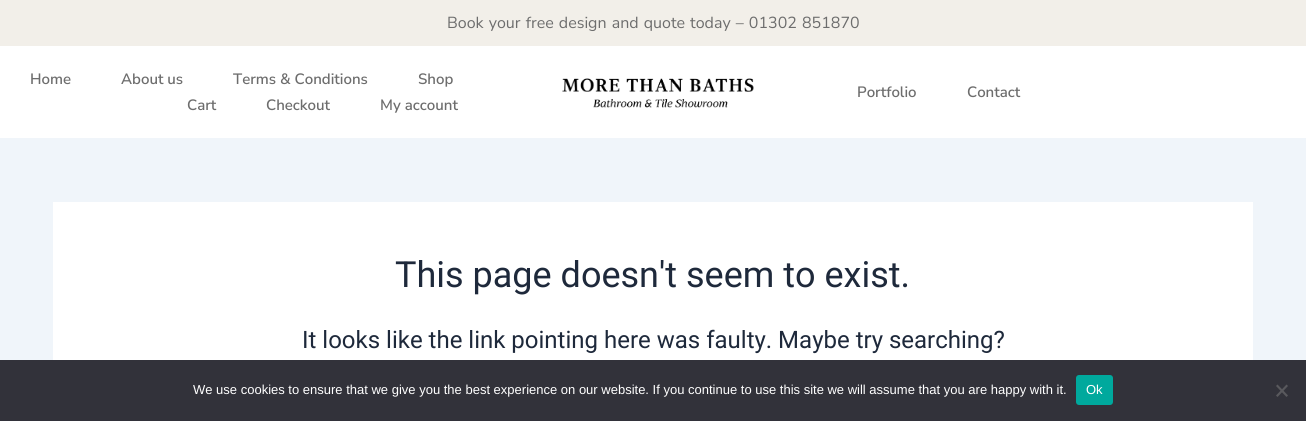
#include <cairo.h>
#include <math.h>
#include <stddef.h>

typedef struct { const char *family; double size; int italic, bold; unsigned color; } style_t;
static cairo_t *ctx;

static void ink(unsigned color) {
    cairo_set_source_rgb(ctx, (color >> 16) / 255.0, (color >> 8 & 255) / 255.0, (color & 255) / 255.0);
}

static void write(double x, double y, const char *s, const style_t *st) {
    cairo_select_font_face(ctx, st->family, st->italic ? CAIRO_FONT_SLANT_ITALIC : CAIRO_FONT_SLANT_NORMAL,
        st->bold ? CAIRO_FONT_WEIGHT_BOLD : CAIRO_FONT_WEIGHT_NORMAL);
    cairo_set_font_size(ctx, st->size);
    ink(st->color);
    cairo_move_to(ctx, x, y);
    cairo_show_text(ctx, s);
}

static void write_spaced(double x, double y, const char *s, double letter, double word) {
    cairo_move_to(ctx, x, y);
    while (*s) {
        char ch[5] = {0};
        int n = 0;
        do ch[n++] = *s++; while ((*s & 0xC0) == 0x80);
        cairo_show_text(ctx, ch);
        cairo_rel_move_to(ctx, letter + word * (*ch == ' '), 0);
    }
}

static void block(double x, double y, double w, double h, unsigned color) {
    ink(color);
    cairo_rectangle(ctx, x, y, w, h);
    cairo_fill(ctx);
}

static void round_path(double x, double y, double w, double h, double r) {
    cairo_new_sub_path(ctx);
    cairo_arc(ctx, x + w - r, y + h - r, r, 0, M_PI / 2);
    cairo_arc(ctx, x + r, y + h - r, r, M_PI / 2, M_PI);
    cairo_arc(ctx, x + r, y + r, r, M_PI, 1.5 * M_PI);
    cairo_arc(ctx, x + w - r, y + r, r, 1.5 * M_PI, 2 * M_PI);
    cairo_close_path(ctx);
}

static void paste(const char *path, double x, double y, double w, double h) {
    cairo_surface_t *image = cairo_image_surface_create_from_png(path);
    cairo_save(ctx);
    cairo_set_source_surface(ctx, image, x, y);
    cairo_rectangle(ctx, x, y, w, h);
    cairo_fill(ctx);
    cairo_restore(ctx);
    cairo_surface_destroy(image);
}

static const style_t s1 = {"Nunito Sans SemiBold", 15, 0, 0, 0x6d6d6d};
static const style_t s2 = {"Roboto", 36, 0, 0, 0x1e293b};
static const style_t s3 = {"Roboto", 24, 0, 0, 0x1e293b};
static const style_t s4 = {"Liberation Sans", 13, 0, 0, 0xffffff};

int main(void) {
    cairo_surface_t *surface = cairo_image_surface_create(CAIRO_FORMAT_RGB24, 1306, 421);
    ctx = cairo_create(surface);
    cairo_font_options_t *options = cairo_font_options_create();
    cairo_font_options_set_hint_metrics(options, CAIRO_HINT_METRICS_OFF);
    cairo_font_options_set_hint_style(options, CAIRO_HINT_STYLE_NONE);
    cairo_set_font_options(ctx, options);
    cairo_set_miter_limit(ctx, 4);
    ink(0xf0f5fa);
    cairo_paint(ctx);
    block(0, 0, 1306, 46, 0xf2efe9);
    cairo_select_font_face(ctx, "Nunito Sans", CAIRO_FONT_SLANT_NORMAL, CAIRO_FONT_WEIGHT_NORMAL);
    cairo_set_font_size(ctx, 16);
    ink(0x6d6d6d);
    write_spaced(447, 28, "Book your free design and quote today – 01302 851870", 0, 1);
    block(0, 46, 1306, 92, 0xffffff);
    write(30, 84, "Home", &s1);
    write(121, 84, "About us", &s1);
    write(233, 84, "Terms & Conditions", &s1);
    write(418, 84, "Shop", &s1);
    write(187, 110, "Cart", &s1);
    write(266, 110, "Checkout", &s1);
    write(380, 110, "My account", &s1);
    paste("pic1.png", 562, 78, 192, 30);
    write(857, 97, "Portfolio", &s1);
    write(967, 97, "Contact", &s1);
    block(53, 202, 1200, 158, 0xffffff);
    write(395, 287, "This page doesn't seem to exist.", &s2);
    write(302, 348, "It looks like the link pointing here was faulty. Maybe try searching?", &s3);
    block(0, 360, 1306, 61, 0x32323a);
    write(193, 394, "We use cookies to ensure that we give you the best experience on our website. If you continue to use this site we will assume that you are happy with it.", &s4);
    ink(0x00a99d);
    round_path(1076, 375, 37, 30, 3);
    cairo_fill(ctx);
    write(1086, 394, "Ok", &s4);
    ink(0x59595d);
    cairo_new_path(ctx);
    cairo_move_to(ctx, 1286.5, 384.5);
    cairo_line_to(ctx, 1288, 386);
    cairo_line_to(ctx, 1277.5, 397);
    cairo_line_to(ctx, 1276, 395.5);
    cairo_close_path(ctx);
    cairo_fill(ctx);
    cairo_new_path(ctx);
    cairo_move_to(ctx, 1276, 386);
    cairo_line_to(ctx, 1277.5, 384.5);
    cairo_line_to(ctx, 1288, 395.5);
    cairo_line_to(ctx, 1286.5, 397);
    cairo_close_path(ctx);
    cairo_fill(ctx);
    cairo_surface_write_to_png(surface, "screenshot.png");
    cairo_font_options_destroy(options);
    cairo_destroy(ctx);
    cairo_surface_destroy(surface);
    return 0;
}
